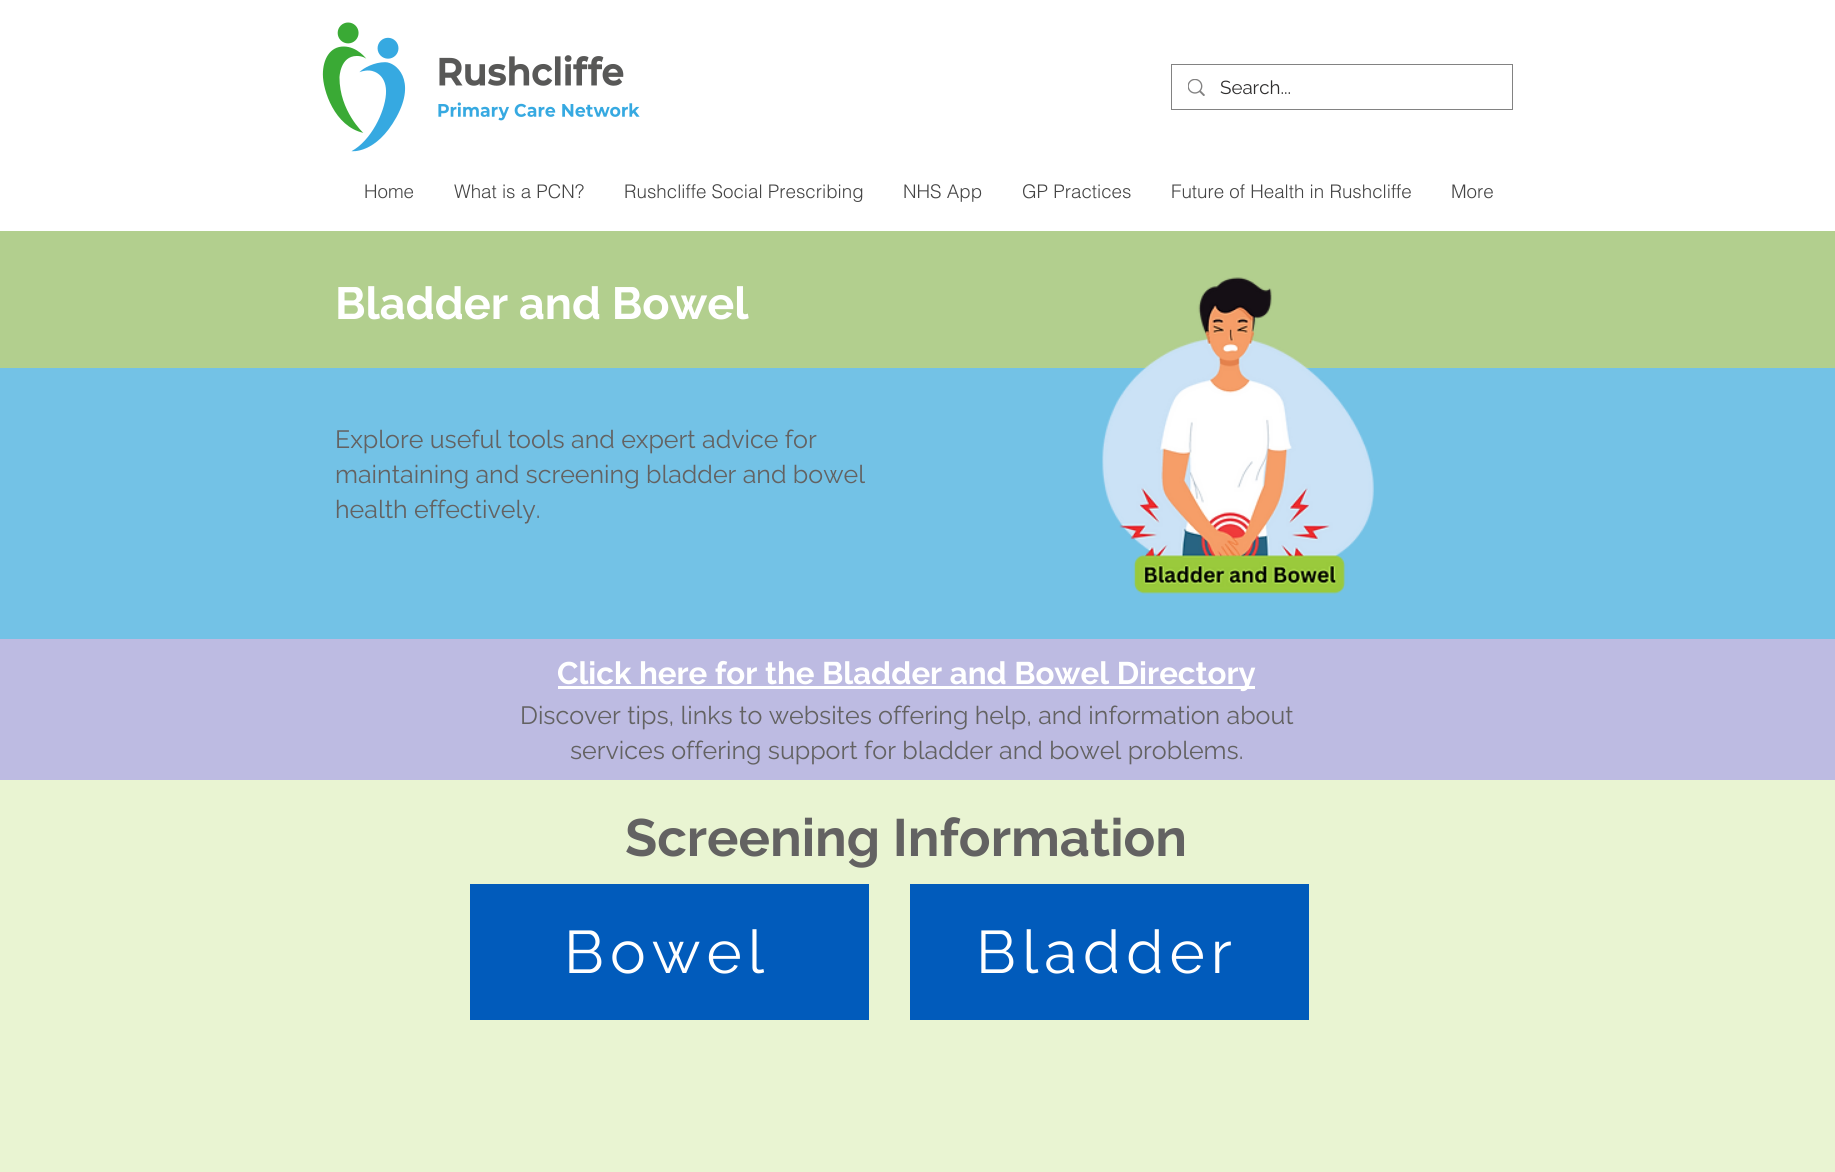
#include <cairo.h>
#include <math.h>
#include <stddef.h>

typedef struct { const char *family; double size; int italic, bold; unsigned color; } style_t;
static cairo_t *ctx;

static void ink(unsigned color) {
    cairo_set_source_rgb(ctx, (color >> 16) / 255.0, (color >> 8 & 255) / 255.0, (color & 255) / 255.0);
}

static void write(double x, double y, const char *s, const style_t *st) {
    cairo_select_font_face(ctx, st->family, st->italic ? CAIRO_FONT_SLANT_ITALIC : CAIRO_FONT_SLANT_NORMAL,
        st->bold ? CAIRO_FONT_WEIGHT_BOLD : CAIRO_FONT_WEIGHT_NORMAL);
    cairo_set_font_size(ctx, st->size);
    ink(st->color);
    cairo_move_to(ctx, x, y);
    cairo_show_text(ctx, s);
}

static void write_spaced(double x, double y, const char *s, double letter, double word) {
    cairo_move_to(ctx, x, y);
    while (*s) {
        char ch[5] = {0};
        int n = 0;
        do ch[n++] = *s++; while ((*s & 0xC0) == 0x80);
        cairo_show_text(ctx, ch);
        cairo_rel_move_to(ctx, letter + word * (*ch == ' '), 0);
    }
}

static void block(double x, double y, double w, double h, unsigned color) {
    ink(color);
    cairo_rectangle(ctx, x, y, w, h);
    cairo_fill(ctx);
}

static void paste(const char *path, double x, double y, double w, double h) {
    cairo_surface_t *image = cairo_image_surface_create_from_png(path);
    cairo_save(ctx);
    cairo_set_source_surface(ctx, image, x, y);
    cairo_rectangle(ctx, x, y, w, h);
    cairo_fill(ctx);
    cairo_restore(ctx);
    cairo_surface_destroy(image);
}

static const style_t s1 = {"Raleway", 18.75, 0, 0, 0x2f2e2e};
static const style_t s2 = {"helvetica Light", 18.75, 0, 0, 0x444444};
static const style_t s3 = {"Raleway", 45, 0, 1, 0xffffff};
static const style_t s4 = {"Raleway", 25, 0, 0, 0x636262};
static const style_t s5 = {"Raleway", 31.25, 0, 1, 0xffffff};
static const style_t s6 = {"Raleway", 52.5, 0, 1, 0x636262};

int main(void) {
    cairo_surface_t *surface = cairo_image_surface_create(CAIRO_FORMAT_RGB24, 1835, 1172);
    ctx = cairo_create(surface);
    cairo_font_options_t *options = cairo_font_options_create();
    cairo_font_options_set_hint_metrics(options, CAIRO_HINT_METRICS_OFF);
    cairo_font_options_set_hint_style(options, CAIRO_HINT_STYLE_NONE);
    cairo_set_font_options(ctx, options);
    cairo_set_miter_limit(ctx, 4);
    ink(0xffffff);
    cairo_paint(ctx);
    paste("pic1.png", 322, 22, 318, 130);
    cairo_rectangle(ctx, 1171.5, 64.5, 341, 45);
    ink(0x828282);
    cairo_set_line_width(ctx, 1);
    cairo_stroke(ctx);
    paste("pic2.png", 1188, 79, 17, 17);
    write(1220, 94, "Search...", &s1);
    write(364, 198, "Home", &s2);
    write(454, 198, "What is a PCN?", &s2);
    write(624, 198, "Rushcliffe Social Prescribing", &s2);
    write(903, 198, "NHS App", &s2);
    write(1022, 198, "GP Practices", &s2);
    write(1171, 198, "Future of Health in Rushcliffe", &s2);
    write(1451, 198, "More", &s2);
    block(0, 231, 1835, 137, 0xb2cf8e);
    write(335, 319, "Bladder and Bowel", &s3);
    block(0, 368, 1835, 271, 0x73c2e6);
    paste("pic3.png", 1102, 277, 272, 317);
    write(335, 448, "Explore useful tools and expert advice for", &s4);
    write(335, 483, "maintaining and screening bladder and bowel", &s4);
    write(335, 518, "health effectively.", &s4);
    block(0, 639, 1835, 141, 0xbdbbe2);
    block(558, 686, 697, 3, 0xffffff);
    write(557, 684, "Click here for the Bladder and Bowel Directory", &s5);
    write(520, 724, "Discover tips, links to websites offering help, and information about", &s4);
    write(570, 759, "services offering support for bladder and bowel problems.", &s4);
    block(0, 780, 1835, 392, 0xe9f4d2);
    write(625, 856, "Screening Information", &s6);
    block(470, 884, 399, 136, 0x015bbb);
    cairo_select_font_face(ctx, "Raleway", CAIRO_FONT_SLANT_NORMAL, CAIRO_FONT_WEIGHT_NORMAL);
    cairo_set_font_size(ctx, 60);
    ink(0xffffff);
    write_spaced(564, 973, "Bowel", 6, 0);
    block(910, 884, 399, 136, 0x015bbb);
    ink(0xffffff);
    write_spaced(976, 973, "Bladder", 6, 0);
    cairo_surface_write_to_png(surface, "screenshot.png");
    cairo_font_options_destroy(options);
    cairo_destroy(ctx);
    cairo_surface_destroy(surface);
    return 0;
}
